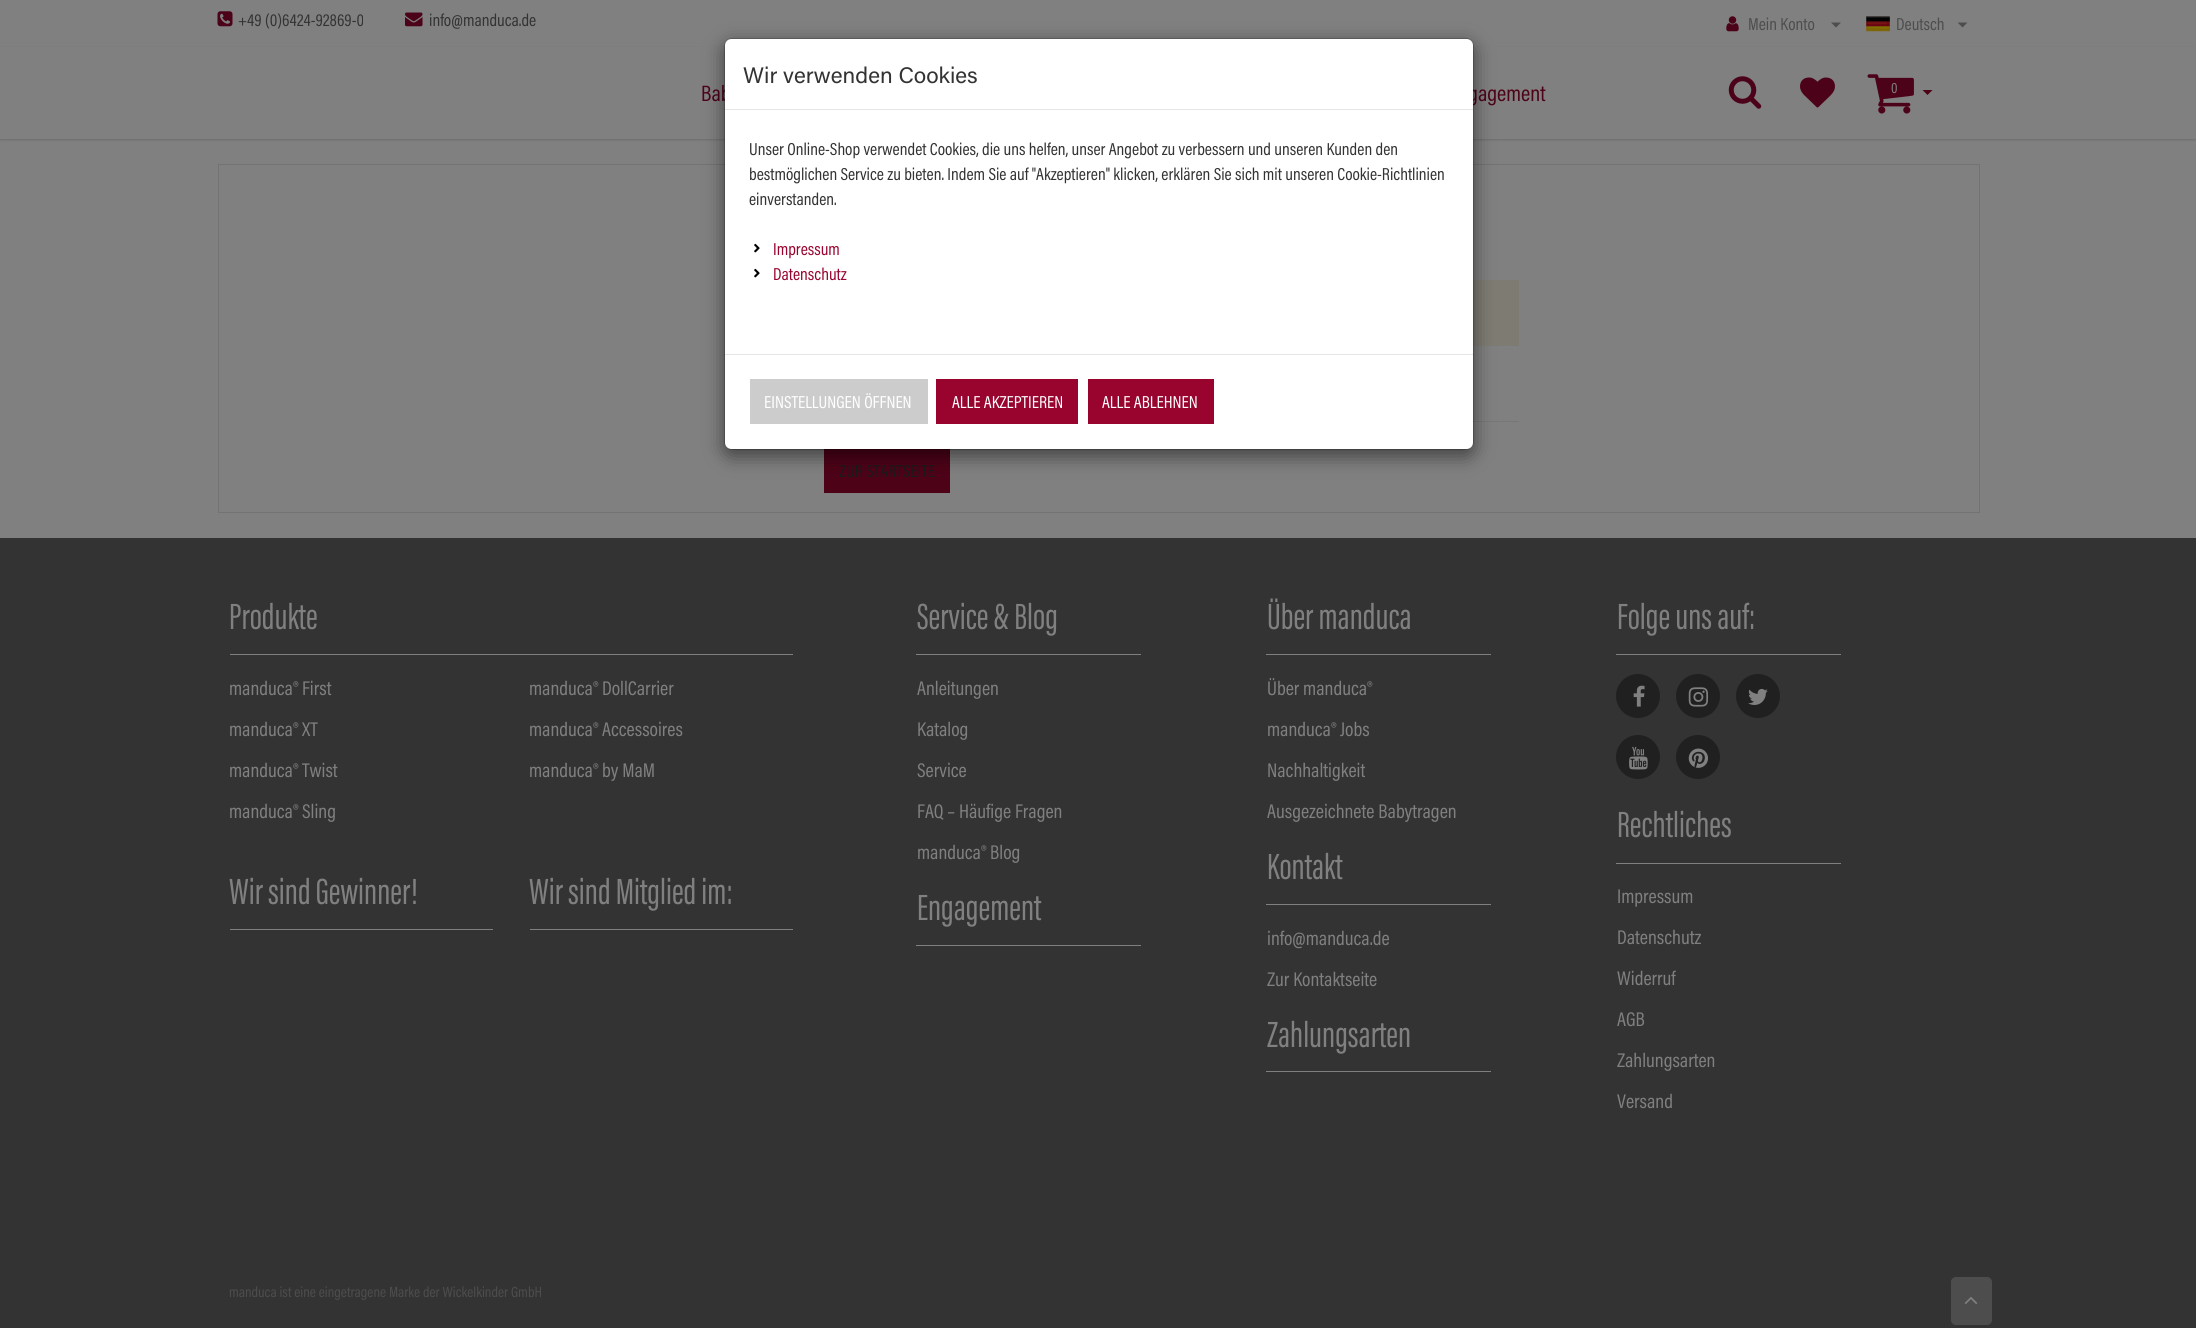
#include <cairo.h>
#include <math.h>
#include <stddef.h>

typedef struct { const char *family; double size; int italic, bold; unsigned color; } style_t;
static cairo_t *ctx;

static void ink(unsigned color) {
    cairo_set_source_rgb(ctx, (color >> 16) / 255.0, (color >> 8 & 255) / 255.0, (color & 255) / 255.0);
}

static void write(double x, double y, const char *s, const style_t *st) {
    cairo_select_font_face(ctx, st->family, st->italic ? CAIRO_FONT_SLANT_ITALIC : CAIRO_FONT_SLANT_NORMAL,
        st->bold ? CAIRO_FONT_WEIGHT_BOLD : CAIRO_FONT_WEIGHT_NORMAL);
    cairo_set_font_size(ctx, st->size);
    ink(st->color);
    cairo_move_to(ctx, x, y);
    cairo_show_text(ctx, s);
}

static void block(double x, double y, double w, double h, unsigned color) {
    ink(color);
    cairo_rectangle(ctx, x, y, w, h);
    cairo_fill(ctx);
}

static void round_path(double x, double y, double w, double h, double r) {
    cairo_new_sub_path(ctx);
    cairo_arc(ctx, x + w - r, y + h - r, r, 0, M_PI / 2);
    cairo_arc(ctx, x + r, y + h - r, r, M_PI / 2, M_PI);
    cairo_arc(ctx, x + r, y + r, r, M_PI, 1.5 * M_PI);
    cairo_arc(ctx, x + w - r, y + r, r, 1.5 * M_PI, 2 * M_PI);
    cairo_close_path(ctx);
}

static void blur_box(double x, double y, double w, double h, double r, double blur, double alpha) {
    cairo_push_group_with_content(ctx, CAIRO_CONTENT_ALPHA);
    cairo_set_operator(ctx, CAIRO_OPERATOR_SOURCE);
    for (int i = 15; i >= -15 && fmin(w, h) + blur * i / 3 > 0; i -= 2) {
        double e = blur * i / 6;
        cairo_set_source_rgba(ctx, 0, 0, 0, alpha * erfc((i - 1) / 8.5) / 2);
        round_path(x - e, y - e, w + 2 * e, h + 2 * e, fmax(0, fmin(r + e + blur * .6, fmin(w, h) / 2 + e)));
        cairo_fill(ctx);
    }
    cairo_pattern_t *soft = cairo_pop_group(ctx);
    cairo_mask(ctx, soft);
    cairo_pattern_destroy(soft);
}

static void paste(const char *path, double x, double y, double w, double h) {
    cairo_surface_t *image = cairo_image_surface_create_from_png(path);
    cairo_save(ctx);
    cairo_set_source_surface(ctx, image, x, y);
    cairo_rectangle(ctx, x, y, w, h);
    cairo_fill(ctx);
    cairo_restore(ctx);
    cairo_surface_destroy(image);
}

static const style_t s1 = {"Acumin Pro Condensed", 17.5, 0, 0, 0x333333};
static const style_t s2 = {"Acumin Pro Condensed", 17.5, 0, 0, 0x4d4d4d};
static const style_t s3 = {"Acumin Pro Condensed", 22.5, 0, 0, 0x4d0218};
static const style_t s4 = {"Acumin Pro Condensed", 15, 0, 0, 0x808080};
static const style_t s5 = {"Acumin Pro Condensed", 17.5, 0, 0, 0x1a1a1a};
static const style_t s6 = {"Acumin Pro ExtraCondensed", 37.5, 0, 0, 0x808080};
static const style_t s7 = {"Acumin Pro Condensed", 20, 0, 0, 0x808080};
static const style_t s8 = {"Acumin Pro Condensed", 14.9, 0, 0, 0x4d4d4d};
static const style_t s9 = {"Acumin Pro", 22.5, 0, 0, 0x333333};
static const style_t s10 = {"Acumin Pro Condensed", 17.5, 0, 0, 0x99042f};
static const style_t s11 = {"Acumin Pro Condensed", 17.5, 0, 0, 0xffffff};

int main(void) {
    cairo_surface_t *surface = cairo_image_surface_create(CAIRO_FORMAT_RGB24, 2196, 1328);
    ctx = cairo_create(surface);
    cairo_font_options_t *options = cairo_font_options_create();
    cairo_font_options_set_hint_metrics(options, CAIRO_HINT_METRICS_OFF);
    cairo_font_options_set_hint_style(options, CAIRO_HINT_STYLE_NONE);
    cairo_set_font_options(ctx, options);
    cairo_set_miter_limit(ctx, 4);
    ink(0x808080);
    cairo_paint(ctx);
    paste("pic1.png", 217, 11, 16, 16);
    write(238, 26, "+49 (0)6424-92869-0", &s1);
    paste("pic2.png", 405, 12, 18, 15);
    write(429, 26, "info@manduca.de", &s1);
    paste("pic3.png", 1726, 16, 13, 16);
    write(1748, 30, "Mein Konto", &s2);
    cairo_new_path(ctx);
    cairo_move_to(ctx, 1831, 22.5);
    cairo_line_to(ctx, 1841, 22.5);
    cairo_line_to(ctx, 1836, 27.5);
    cairo_close_path(ctx);
    cairo_fill(ctx);
    paste("pic4.png", 1866, 16, 24, 16);
    write(1896, 30, "Deutsch", &s2);
    cairo_new_path(ctx);
    cairo_move_to(ctx, 1957.5, 22.5);
    cairo_line_to(ctx, 1967.5, 22.5);
    cairo_line_to(ctx, 1962.5, 27.5);
    cairo_close_path(ctx);
    cairo_fill(ctx);
    ink(0x000000);
    blur_box(0, 48, 2196, 92, 0, 1, 0.15);
    block(0, 47, 2196, 92, 0x808080);
    write(701, 101, "Bab", &s3);
    write(1468, 101, "gagement", &s3);
    paste("pic5.png", 1728, 76, 34, 33);
    paste("pic6.png", 1800, 77, 35, 31);
    paste("pic7.png", 1867, 74, 47, 40);
    write(1891, 93, "0", &s4);
    ink(0x4d0218);
    cairo_new_path(ctx);
    cairo_move_to(ctx, 1922.5, 90);
    cairo_line_to(ctx, 1932.5, 90);
    cairo_line_to(ctx, 1927.5, 95);
    cairo_close_path(ctx);
    cairo_fill(ctx);
    cairo_rectangle(ctx, 218.5, 164.5, 1761, 348);
    ink(0x737373);
    cairo_set_line_width(ctx, 1);
    cairo_stroke(ctx);
    block(1473, 280, 46, 66, 0x7e7c72);
    block(1473, 421, 46, 1, 0x777777);
    block(824, 449, 126, 44, 0x4d0218);
    write(839, 477, "ZUR STARTSEITE", &s5);
    block(0, 538, 2196, 790, 0x333333);
    block(230, 654, 563, 1, 0x808080);
    write(229, 629, "Produkte", &s6);
    write(229, 695, "manduca® First", &s7);
    write(229, 736, "manduca® XT", &s7);
    write(229, 777, "manduca® Twist", &s7);
    write(229, 818, "manduca® Sling", &s7);
    write(529, 695, "manduca® DollCarrier", &s7);
    write(529, 736, "manduca® Accessoires", &s7);
    write(529, 777, "manduca® by MaM", &s7);
    block(230, 929, 263, 1, 0x808080);
    write(229, 904, "Wir sind Gewinner!", &s6);
    block(530, 929, 263, 1, 0x808080);
    write(529, 904, "Wir sind Mitglied im:", &s6);
    block(916, 654, 225, 1, 0x808080);
    write(917, 629, "Service & Blog", &s6);
    write(917, 695, "Anleitungen", &s7);
    write(917, 736, "Katalog", &s7);
    write(917, 777, "Service", &s7);
    write(917, 818, "FAQ – Häufige Fragen", &s7);
    write(917, 859, "manduca® Blog", &s7);
    block(916, 945, 225, 1, 0x808080);
    write(917, 920, "Engagement", &s6);
    block(1266, 654, 225, 1, 0x808080);
    write(1267, 629, "Über manduca", &s6);
    write(1267, 695, "Über manduca®", &s7);
    write(1267, 736, "manduca® Jobs", &s7);
    write(1267, 777, "Nachhaltigkeit", &s7);
    write(1267, 818, "Ausgezeichnete Babytragen", &s7);
    block(1266, 904, 225, 1, 0x808080);
    write(1267, 879, "Kontakt", &s6);
    write(1267, 945, "info@manduca.de", &s7);
    write(1267, 986, "Zur Kontaktseite", &s7);
    block(1266, 1071, 225, 1, 0x808080);
    write(1267, 1047, "Zahlungsarten", &s6);
    block(1616, 654, 225, 1, 0x808080);
    write(1617, 629, "Folge uns auf:", &s6);
    ink(0x202020);
    cairo_new_path(ctx);
    cairo_arc(ctx, 1638, 696, 22, 0, 2 * M_PI);
    cairo_fill(ctx);
    paste("pic8.png", 1633, 685, 12, 22);
    cairo_arc(ctx, 1698, 696, 22, 0, 2 * M_PI);
    cairo_fill(ctx);
    paste("pic9.png", 1688, 687, 21, 20);
    cairo_arc(ctx, 1758, 696, 22, 0, 2 * M_PI);
    cairo_fill(ctx);
    paste("pic10.png", 1748, 688, 20, 17);
    cairo_arc(ctx, 1638, 757, 22, 0, 2 * M_PI);
    cairo_fill(ctx);
    paste("pic11.png", 1629, 746, 19, 24);
    cairo_arc(ctx, 1698, 757, 22, 0, 2 * M_PI);
    cairo_fill(ctx);
    paste("pic12.png", 1688, 748, 20, 20);
    block(1616, 863, 225, 1, 0x808080);
    write(1617, 837, "Rechtliches", &s6);
    write(1617, 903, "Impressum", &s7);
    write(1617, 944, "Datenschutz", &s7);
    write(1617, 985, "Widerruf", &s7);
    write(1617, 1026, "AGB", &s7);
    write(1617, 1067, "Zahlungsarten", &s7);
    write(1617, 1108, "Versand", &s7);
    write(229, 1297, "manduca ist eine eingetragene Marke der Wickelkinder GmbH", &s8);
    round_path(1950.5, 1276.5, 42, 49, 5.5);
    cairo_fill_preserve(ctx);
    ink(0x333333);
    cairo_stroke(ctx);
    paste("pic13.png", 1964, 1297, 14, 7);
    ink(0x000000);
    blur_box(724, 44, 750, 412, 8, 9.5, 0.5);
    ink(0xffffff);
    round_path(725, 39, 748, 410, 6);
    cairo_fill(ctx);
    round_path(724.5, 38.5, 749, 411, 7.5);
    cairo_set_source_rgba(ctx, 0, 0, 0, 0.2);
    cairo_stroke(ctx);
    block(725, 109, 748, 1, 0xe5e5e5);
    write(743, 83, "Wir verwenden Cookies", &s9);
    write(749, 155, "Unser Online-Shop verwendet Cookies, die uns helfen, unser Angebot zu verbessern und unseren Kunden den", &s1);
    write(749, 180, "bestmöglichen Service zu bieten. Indem Sie auf \"Akzeptieren\" klicken, erklären Sie sich mit unseren Cookie-Richtlinien", &s1);
    write(749, 205, "einverstanden.", &s1);
    paste("pic14.png", 754, 243, 6, 10);
    write(773, 255, "Impressum", &s10);
    paste("pic14.png", 754, 268, 6, 10);
    write(773, 280, "Datenschutz", &s10);
    block(725, 354, 748, 1, 0xe5e5e5);
    block(750, 379, 178, 45, 0xcccccc);
    write(764, 408, "EINSTELLUNGEN ÖFFNEN", &s11);
    block(936, 379, 142, 45, 0x99042f);
    write(952, 408, "ALLE AKZEPTIEREN", &s11);
    block(1088, 379, 126, 45, 0x99042f);
    write(1102, 408, "ALLE ABLEHNEN", &s11);
    cairo_surface_write_to_png(surface, "screenshot.png");
    cairo_font_options_destroy(options);
    cairo_destroy(ctx);
    cairo_surface_destroy(surface);
    return 0;
}
